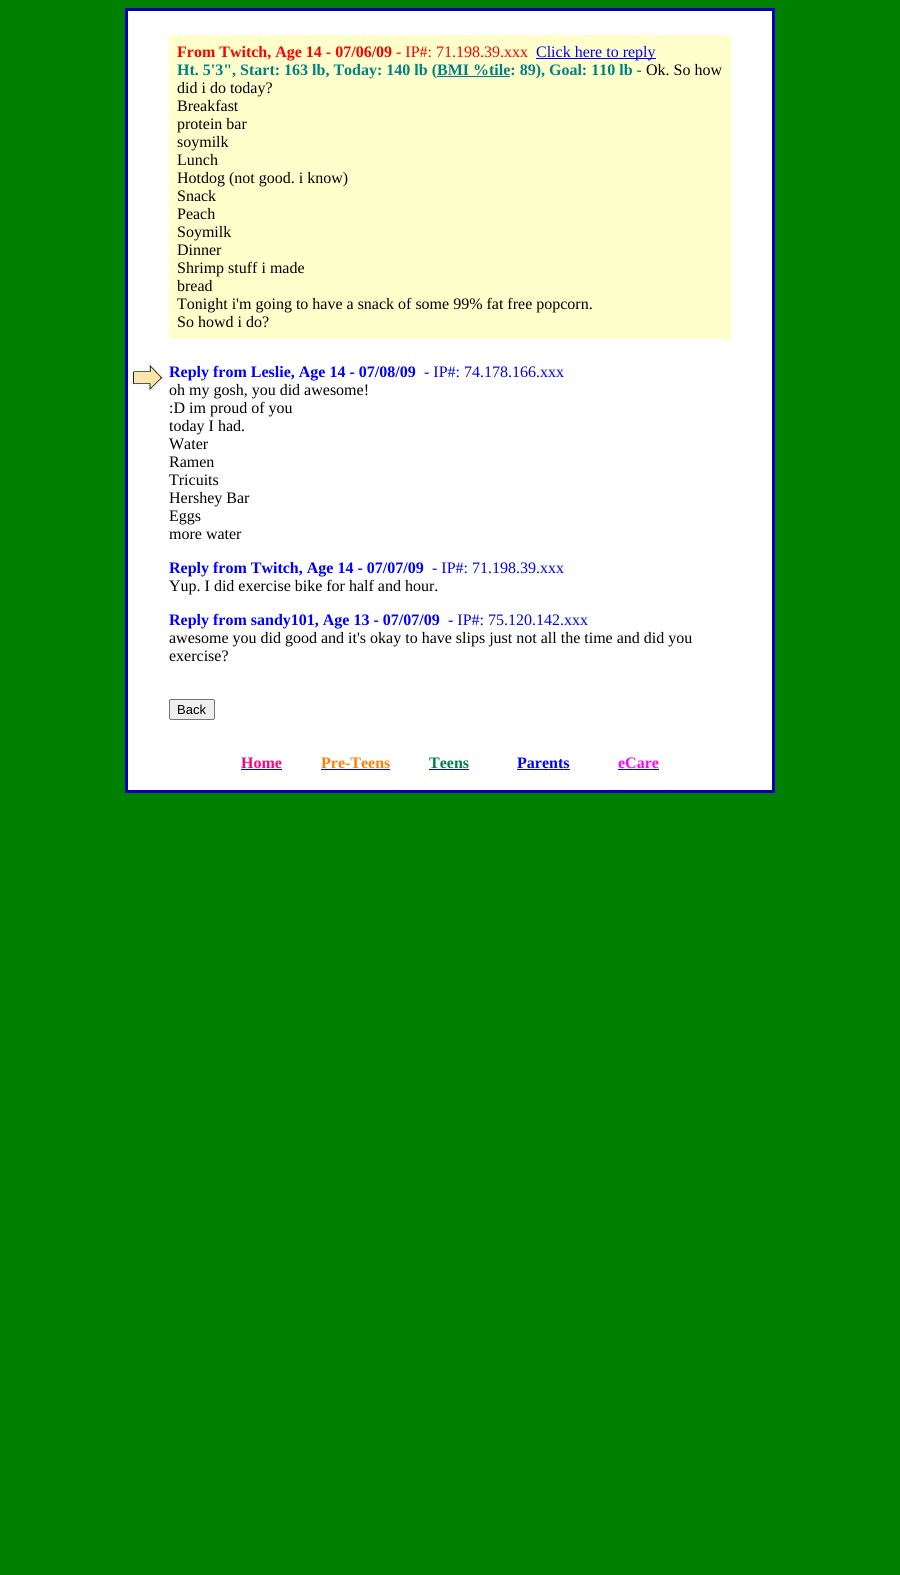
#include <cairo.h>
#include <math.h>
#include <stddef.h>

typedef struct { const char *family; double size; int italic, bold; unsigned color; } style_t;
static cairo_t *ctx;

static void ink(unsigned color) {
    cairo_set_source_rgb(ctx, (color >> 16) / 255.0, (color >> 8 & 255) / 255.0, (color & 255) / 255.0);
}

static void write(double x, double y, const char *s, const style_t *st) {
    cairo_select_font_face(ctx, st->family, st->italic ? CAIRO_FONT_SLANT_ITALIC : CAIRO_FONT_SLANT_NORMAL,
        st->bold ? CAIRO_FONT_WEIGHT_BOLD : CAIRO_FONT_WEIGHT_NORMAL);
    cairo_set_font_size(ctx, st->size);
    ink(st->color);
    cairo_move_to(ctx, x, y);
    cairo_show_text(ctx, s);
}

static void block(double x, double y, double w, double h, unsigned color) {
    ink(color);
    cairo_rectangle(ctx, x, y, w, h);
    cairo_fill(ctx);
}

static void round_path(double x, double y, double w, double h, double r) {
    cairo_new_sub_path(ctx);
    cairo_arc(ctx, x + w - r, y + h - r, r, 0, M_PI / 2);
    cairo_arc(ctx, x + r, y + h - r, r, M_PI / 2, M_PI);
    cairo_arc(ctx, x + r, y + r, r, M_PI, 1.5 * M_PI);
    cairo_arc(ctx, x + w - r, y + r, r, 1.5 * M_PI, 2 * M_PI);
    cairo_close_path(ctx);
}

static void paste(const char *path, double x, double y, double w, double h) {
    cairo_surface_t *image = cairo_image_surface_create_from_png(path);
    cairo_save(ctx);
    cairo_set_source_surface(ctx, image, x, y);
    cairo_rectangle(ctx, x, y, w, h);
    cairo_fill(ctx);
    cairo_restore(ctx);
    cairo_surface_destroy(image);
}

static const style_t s1 = {"Liberation Serif", 16, 0, 1, 0xff0000};
static const style_t s2 = {"Liberation Serif", 16, 0, 0, 0xff0000};
static const style_t s3 = {"Liberation Serif", 16, 0, 0, 0x0000ff};
static const style_t s4 = {"Liberation Serif", 16, 0, 1, 0x008080};
static const style_t s5 = {"Liberation Serif", 16, 0, 0, 0x000000};
static const style_t s6 = {"Liberation Serif", 16, 0, 1, 0x0000ff};
static const style_t s7 = {"Liberation Sans", 13, 0, 0, 0x000000};
static const style_t s8 = {"Liberation Serif", 16, 0, 1, 0xff0080};
static const style_t s9 = {"Liberation Serif", 16, 0, 1, 0xff8000};
static const style_t s10 = {"Liberation Serif", 16, 0, 1, 0x008040};
static const style_t s11 = {"Liberation Serif", 16, 0, 1, 0xff00ff};

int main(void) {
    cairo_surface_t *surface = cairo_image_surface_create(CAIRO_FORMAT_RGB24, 900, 1575);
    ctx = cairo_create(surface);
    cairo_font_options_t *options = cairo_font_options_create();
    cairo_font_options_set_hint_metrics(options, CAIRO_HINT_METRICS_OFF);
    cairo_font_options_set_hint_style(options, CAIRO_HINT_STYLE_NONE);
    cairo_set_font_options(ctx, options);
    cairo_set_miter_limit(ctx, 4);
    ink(0x008000);
    cairo_paint(ctx);
    cairo_rectangle(ctx, 126, 9, 648, 783);
    ink(0x0000bb);
    cairo_stroke(ctx);
    ink(0xffffff);
    cairo_rectangle(ctx, 127.5, 10.5, 645, 780);
    cairo_fill_preserve(ctx);
    ink(0x0000bb);
    cairo_set_line_width(ctx, 1);
    cairo_stroke(ctx);
    block(169, 35, 562, 304, 0xffffcc);
    write(177, 57, "From Twitch, Age 14 - 07/06/09", &s1);
    write(396, 57, "- IP#: 71.198.39.xxx", &s2);
    block(536, 58, 120, 1, 0x0000ff);
    write(536, 57, "Click here to reply", &s3);
    write(177, 75, "Ht. 5'3\", Start: 163 lb, Today: 140 lb (BMI %tile: 89), Goal: 110 lb -", &s4);
    block(437, 76, 73, 1, 0x008080);
    write(646, 75, "Ok. So how", &s5);
    write(177, 93, "did i do today?", &s5);
    write(177, 111, "Breakfast", &s5);
    write(177, 129, "protein bar", &s5);
    write(177, 147, "soymilk", &s5);
    write(177, 165, "Lunch", &s5);
    write(177, 183, "Hotdog (not good. i know)", &s5);
    write(177, 201, "Snack", &s5);
    write(177, 219, "Peach", &s5);
    write(177, 237, "Soymilk", &s5);
    write(177, 255, "Dinner", &s5);
    write(177, 273, "Shrimp stuff i made", &s5);
    write(177, 291, "bread", &s5);
    write(177, 309, "Tonight i'm going to have a snack of some 99% fat free popcorn.", &s5);
    write(177, 327, "So howd i do?", &s5);
    paste("pic1.png", 131, 363, 34, 30);
    write(169, 377, "Reply from Leslie, Age 14 - 07/08/09", &s6);
    write(424, 377, "- IP#: 74.178.166.xxx", &s3);
    write(169, 395, "oh my gosh, you did awesome!", &s5);
    write(169, 413, ":D im proud of you", &s5);
    write(169, 431, "today I had.", &s5);
    write(169, 449, "Water", &s5);
    write(169, 467, "Ramen", &s5);
    write(169, 485, "Tricuits", &s5);
    write(169, 503, "Hershey Bar", &s5);
    write(169, 521, "Eggs", &s5);
    write(169, 539, "more water", &s5);
    write(169, 573, "Reply from Twitch, Age 14 - 07/07/09", &s6);
    write(432, 573, "- IP#: 71.198.39.xxx", &s3);
    write(169, 591, "Yup. I did exercise bike for half and hour.", &s5);
    write(169, 625, "Reply from sandy101, Age 13 - 07/07/09", &s6);
    write(448, 625, "- IP#: 75.120.142.xxx", &s3);
    write(169, 643, "awesome you did good and it's okay to have slips just not all the time and did you", &s5);
    write(169, 661, "exercise?", &s5);
    ink(0xefefef);
    round_path(169.5, 699.5, 45, 20, 1.5);
    cairo_fill_preserve(ctx);
    ink(0x767676);
    cairo_stroke(ctx);
    write(177, 714, "Back", &s7);
    write(241, 768, "Home", &s8);
    block(241, 769, 41, 1, 0x0000ff);
    write(321, 768, "Pre-Teens", &s9);
    block(321, 769, 69, 1, 0x0000ff);
    write(429, 768, "Teens", &s10);
    block(429, 769, 40, 1, 0x0000ff);
    write(517, 768, "Parents", &s6);
    block(517, 769, 53, 1, 0x0000ff);
    write(618, 768, "eCare", &s11);
    block(618, 769, 41, 1, 0x0000ff);
    cairo_surface_write_to_png(surface, "screenshot.png");
    cairo_font_options_destroy(options);
    cairo_destroy(ctx);
    cairo_surface_destroy(surface);
    return 0;
}
